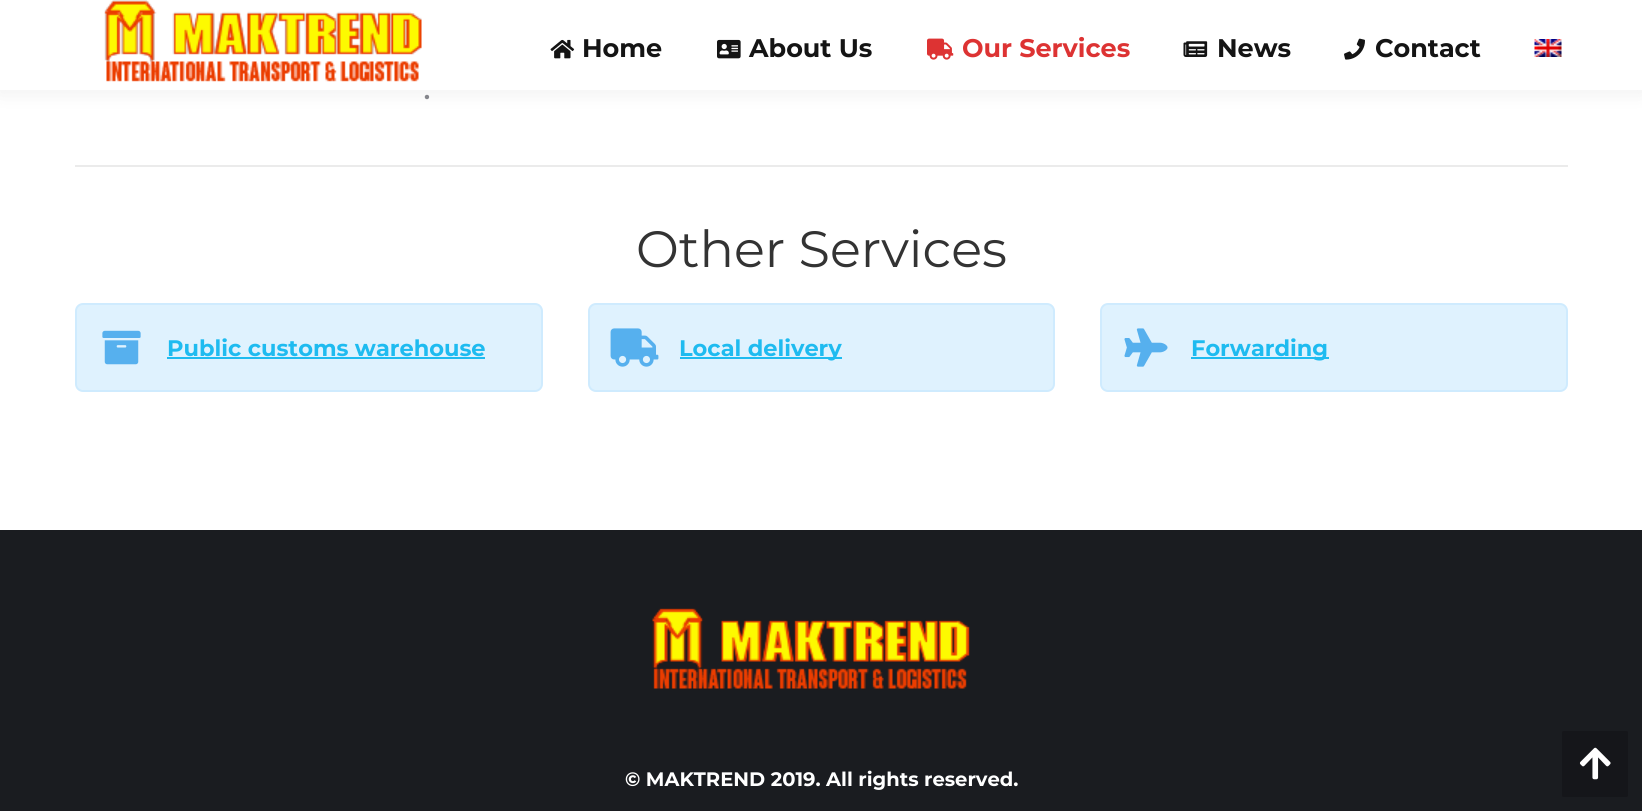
#include <cairo.h>
#include <math.h>
#include <stddef.h>

typedef struct { const char *family; double size; int italic, bold; unsigned color; } style_t;
static cairo_t *ctx;

static void ink(unsigned color) {
    cairo_set_source_rgb(ctx, (color >> 16) / 255.0, (color >> 8 & 255) / 255.0, (color & 255) / 255.0);
}

static void write(double x, double y, const char *s, const style_t *st) {
    cairo_select_font_face(ctx, st->family, st->italic ? CAIRO_FONT_SLANT_ITALIC : CAIRO_FONT_SLANT_NORMAL,
        st->bold ? CAIRO_FONT_WEIGHT_BOLD : CAIRO_FONT_WEIGHT_NORMAL);
    cairo_set_font_size(ctx, st->size);
    ink(st->color);
    cairo_move_to(ctx, x, y);
    cairo_show_text(ctx, s);
}

static void block(double x, double y, double w, double h, unsigned color) {
    ink(color);
    cairo_rectangle(ctx, x, y, w, h);
    cairo_fill(ctx);
}

static void round_path(double x, double y, double w, double h, double r) {
    cairo_new_sub_path(ctx);
    cairo_arc(ctx, x + w - r, y + h - r, r, 0, M_PI / 2);
    cairo_arc(ctx, x + r, y + h - r, r, M_PI / 2, M_PI);
    cairo_arc(ctx, x + r, y + r, r, M_PI, 1.5 * M_PI);
    cairo_arc(ctx, x + w - r, y + r, r, 1.5 * M_PI, 2 * M_PI);
    cairo_close_path(ctx);
}

static void blur_box(double x, double y, double w, double h, double r, double blur, double alpha) {
    cairo_push_group_with_content(ctx, CAIRO_CONTENT_ALPHA);
    cairo_set_operator(ctx, CAIRO_OPERATOR_SOURCE);
    for (int i = 15; i >= -15 && fmin(w, h) + blur * i / 3 > 0; i -= 2) {
        double e = blur * i / 6;
        cairo_set_source_rgba(ctx, 0, 0, 0, alpha * erfc((i - 1) / 8.5) / 2);
        round_path(x - e, y - e, w + 2 * e, h + 2 * e, fmax(0, fmin(r + e + blur * .6, fmin(w, h) / 2 + e)));
        cairo_fill(ctx);
    }
    cairo_pattern_t *soft = cairo_pop_group(ctx);
    cairo_mask(ctx, soft);
    cairo_pattern_destroy(soft);
}

static void paste(const char *path, double x, double y, double w, double h) {
    cairo_surface_t *image = cairo_image_surface_create_from_png(path);
    cairo_save(ctx);
    cairo_set_source_surface(ctx, image, x, y);
    cairo_rectangle(ctx, x, y, w, h);
    cairo_fill(ctx);
    cairo_restore(ctx);
    cairo_surface_destroy(image);
}

static const style_t s1 = {"Montserrat", 25.5, 0, 1, 0x141414};
static const style_t s2 = {"Montserrat", 25.5, 0, 1, 0xdd3333};
static const style_t s3 = {"Montserrat", 22.5, 0, 1, 0x85868c};
static const style_t s4 = {"Montserrat", 51, 0, 0, 0x333333};
static const style_t s5 = {"Montserrat", 22.5, 0, 1, 0x1ebbf0};
static const style_t s6 = {"Montserrat", 19.5, 0, 1, 0xffffff};

int main(void) {
    cairo_surface_t *surface = cairo_image_surface_create(CAIRO_FORMAT_RGB24, 1642, 811);
    ctx = cairo_create(surface);
    cairo_font_options_t *options = cairo_font_options_create();
    cairo_font_options_set_hint_metrics(options, CAIRO_HINT_METRICS_OFF);
    cairo_font_options_set_hint_style(options, CAIRO_HINT_STYLE_NONE);
    cairo_set_font_options(ctx, options);
    cairo_set_miter_limit(ctx, 4);
    ink(0xffffff);
    cairo_paint(ctx);
    ink(0x000000);
    blur_box(-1, -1, 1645, 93, 0, 11, 0.07);
    block(0, 0, 1642, 90, 0xffffff);
    paste("pic1.png", 104, 0, 318, 82);
    paste("pic2.png", 550, 39, 25, 20);
    write(582, 57, "Home", &s1);
    paste("pic3.png", 717, 39, 24, 20);
    write(749, 57, "About Us", &s1);
    paste("pic4.png", 927, 38, 27, 22);
    write(962, 57, "Our Services", &s2);
    paste("pic5.png", 1183, 41, 25, 16);
    write(1217, 57, "News", &s1);
    paste("pic6.png", 1344, 38, 21, 22);
    write(1375, 57, "Contact", &s1);
    paste("pic7.png", 1534, 39, 28, 18);
    write(424, 99, ".", &s3);
    block(75, 165, 1493, 2, 0xebebeb);
    write(636, 267, "Other Services", &s4);
    ink(0xdff2fe);
    round_path(76, 304, 466, 87, 7);
    cairo_fill_preserve(ctx);
    ink(0xcfebfe);
    cairo_stroke(ctx);
    paste("pic8.png", 102, 330, 39, 35);
    write(167, 356, "Public customs warehouse", &s5);
    block(167, 357, 318, 2, 0x1ebbf0);
    ink(0xdff2fe);
    round_path(589, 304, 465, 87, 7);
    cairo_fill_preserve(ctx);
    ink(0xcfebfe);
    cairo_stroke(ctx);
    paste("pic9.png", 610, 328, 49, 39);
    block(680, 357, 162, 2, 0x1ebbf0);
    write(679, 356, "Local delivery", &s5);
    ink(0xdff2fe);
    round_path(1101, 304, 466, 87, 7);
    cairo_fill_preserve(ctx);
    ink(0xcfebfe);
    cairo_stroke(ctx);
    paste("pic10.png", 1124, 328, 44, 39);
    block(1191, 357, 138, 2, 0x1ebbf0);
    write(1191, 356, "Forwarding", &s5);
    block(0, 530, 1642, 281, 0x1a1c20);
    paste("pic11.png", 652, 608, 318, 81);
    write(625, 786, "© MAKTREND 2019. All rights reserved.", &s6);
    ink(0x15161a);
    round_path(1562, 731, 66, 66, 1.5);
    cairo_fill(ctx);
    paste("pic12.png", 1579, 747, 32, 33);
    cairo_surface_write_to_png(surface, "screenshot.png");
    cairo_font_options_destroy(options);
    cairo_destroy(ctx);
    cairo_surface_destroy(surface);
    return 0;
}
